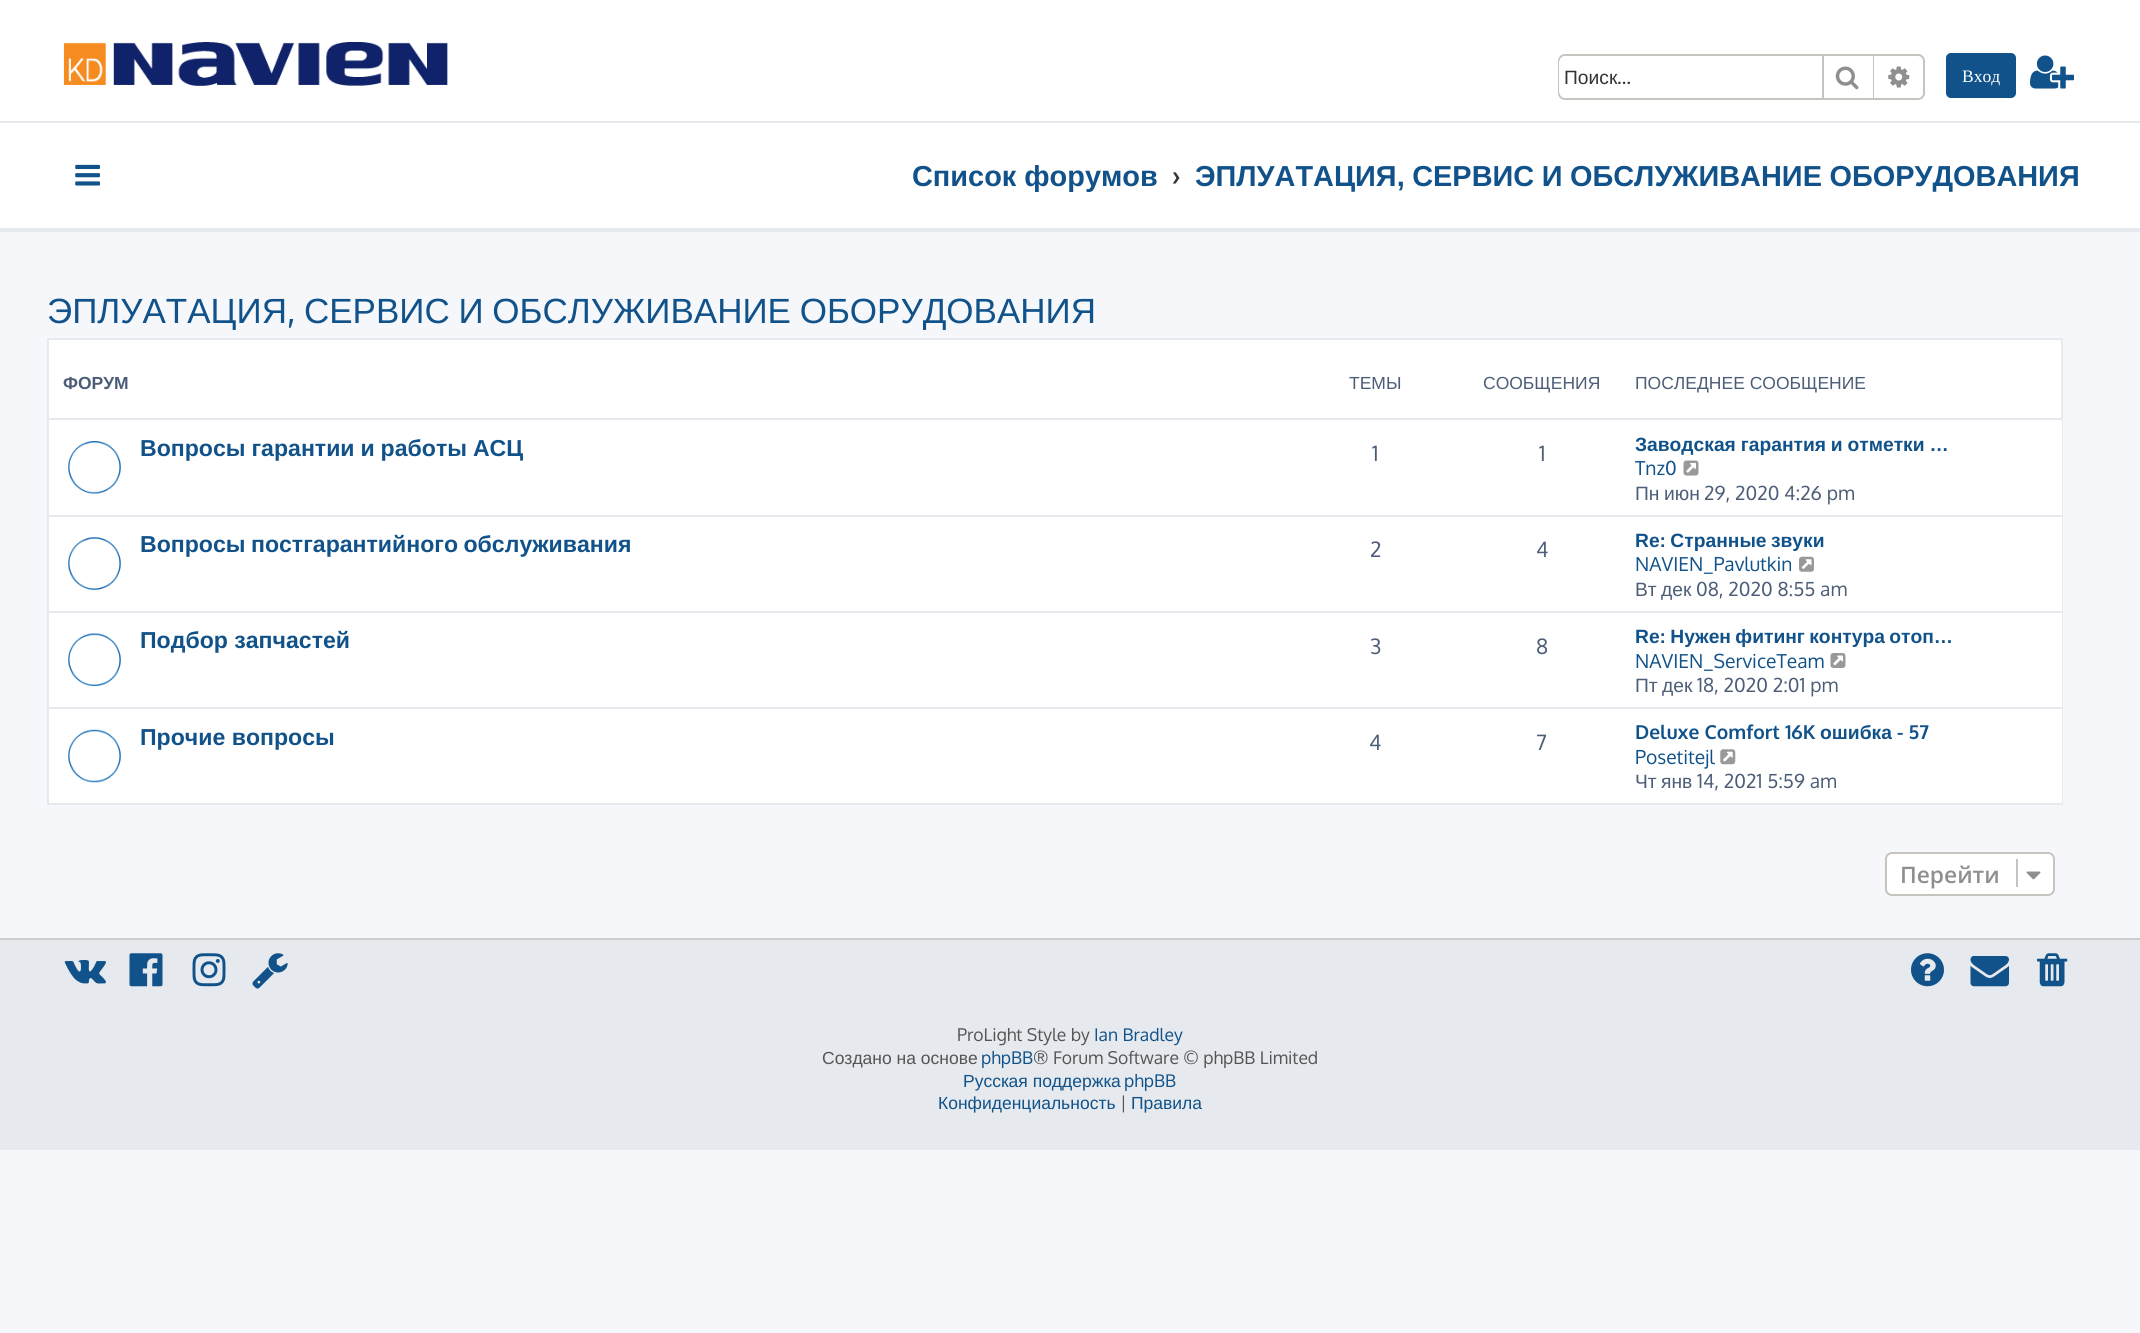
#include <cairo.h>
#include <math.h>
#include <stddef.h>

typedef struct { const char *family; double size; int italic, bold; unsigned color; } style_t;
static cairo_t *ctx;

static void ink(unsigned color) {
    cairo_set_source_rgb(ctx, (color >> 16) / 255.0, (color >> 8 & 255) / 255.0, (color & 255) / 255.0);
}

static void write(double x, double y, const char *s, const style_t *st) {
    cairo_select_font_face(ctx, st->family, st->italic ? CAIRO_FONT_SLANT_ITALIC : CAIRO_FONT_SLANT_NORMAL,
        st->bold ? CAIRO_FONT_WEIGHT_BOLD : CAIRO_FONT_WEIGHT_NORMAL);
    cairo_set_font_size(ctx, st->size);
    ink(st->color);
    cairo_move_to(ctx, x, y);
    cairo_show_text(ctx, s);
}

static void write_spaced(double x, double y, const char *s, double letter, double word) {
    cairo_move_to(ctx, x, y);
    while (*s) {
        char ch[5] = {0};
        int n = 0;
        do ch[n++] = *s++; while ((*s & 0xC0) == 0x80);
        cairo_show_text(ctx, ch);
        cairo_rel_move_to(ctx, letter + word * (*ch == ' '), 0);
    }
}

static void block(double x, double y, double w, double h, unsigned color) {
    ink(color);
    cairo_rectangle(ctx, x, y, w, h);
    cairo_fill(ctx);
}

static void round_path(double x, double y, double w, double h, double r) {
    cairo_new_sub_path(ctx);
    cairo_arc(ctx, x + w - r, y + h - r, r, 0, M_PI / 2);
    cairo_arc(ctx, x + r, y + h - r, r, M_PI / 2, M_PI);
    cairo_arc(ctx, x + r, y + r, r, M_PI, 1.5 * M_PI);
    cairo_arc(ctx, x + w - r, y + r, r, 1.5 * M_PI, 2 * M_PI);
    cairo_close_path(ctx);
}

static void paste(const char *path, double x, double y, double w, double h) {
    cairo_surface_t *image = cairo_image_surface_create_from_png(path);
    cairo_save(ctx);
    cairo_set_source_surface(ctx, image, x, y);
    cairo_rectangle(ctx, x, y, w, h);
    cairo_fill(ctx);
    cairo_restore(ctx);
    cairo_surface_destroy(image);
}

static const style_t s1 = {"Liberation Sans", 19.25, 0, 0, 0x333333};
static const style_t s2 = {"Oxygen", 19.25, 0, 0, 0x333333};
static const style_t s3 = {"Liberation Serif", 17.5, 0, 0, 0xffffff};
static const style_t s4 = {"Liberation Sans", 28.9, 0, 1, 0x105289};
static const style_t s5 = {"Oxygen", 28.9, 0, 1, 0x333333};
static const style_t s6 = {"Liberation Sans", 35, 0, 0, 0x105289};
static const style_t s7 = {"Oxygen", 35, 0, 0, 0x105289};
static const style_t s8 = {"Liberation Sans", 17.5, 0, 1, 0x4c5d77};
static const style_t s9 = {"Liberation Sans", 17.5, 0, 0, 0x4c5d77};
static const style_t s10 = {"Oxygen", 21, 0, 0, 0x4c5d77};
static const style_t s11 = {"Oxygen", 19.25, 0, 0, 0x105289};
static const style_t s12 = {"Liberation Sans", 19.25, 0, 0, 0x4c5d77};
static const style_t s13 = {"Oxygen", 19.25, 0, 0, 0x4c5d77};
static const style_t s14 = {"Liberation Sans", 23.1, 0, 1, 0x105289};
static const style_t s15 = {"Oxygen", 19.25, 0, 1, 0x105289};
static const style_t s16 = {"Liberation Sans", 19.25, 0, 1, 0x105289};
static const style_t s17 = {"Open Sans SemiBold", 22.75, 0, 0, 0x8f8f8f};
static const style_t s18 = {"Oxygen", 17.5, 0, 0, 0x555555};
static const style_t s19 = {"Oxygen", 17.5, 0, 0, 0x105289};
static const style_t s20 = {"Liberation Sans", 17.5, 0, 0, 0x555555};
static const style_t s21 = {"Liberation Sans", 17.5, 0, 0, 0x105289};

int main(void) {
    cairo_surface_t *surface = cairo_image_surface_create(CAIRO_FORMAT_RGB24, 2140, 1333);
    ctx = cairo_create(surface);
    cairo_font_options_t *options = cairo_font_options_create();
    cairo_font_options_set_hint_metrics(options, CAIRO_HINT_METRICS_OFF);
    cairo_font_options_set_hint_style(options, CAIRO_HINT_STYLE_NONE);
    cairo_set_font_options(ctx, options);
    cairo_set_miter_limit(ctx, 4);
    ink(0xf5f7fa);
    cairo_paint(ctx);
    block(0, 0, 2140, 121, 0xffffff);
    block(0, 121, 2140, 2, 0xe6e9ed);
    paste("pic1.png", 63, 42, 385, 44);
    round_path(1559, 55, 365, 44, 6);
    ink(0xc7c3bf);
    cairo_stroke(ctx);
    ink(0xffffff);
    cairo_new_path(ctx);
    cairo_move_to(ctx, 1566, 56);
    cairo_line_to(ctx, 1822, 56);
    cairo_line_to(ctx, 1822, 98);
    cairo_line_to(ctx, 1566, 98);
    cairo_curve_to(ctx, 1562, 98, 1559, 95, 1559, 91);
    cairo_line_to(ctx, 1559, 63);
    cairo_curve_to(ctx, 1559, 59, 1562, 56, 1566, 56);
    cairo_close_path(ctx);
    cairo_fill(ctx);
    write(1564, 84, "Поиск", &s1);
    write(1617, 84, "…", &s2);
    block(1873, 56, 1, 42, 0xc7c3bf);
    block(1822, 56, 2, 42, 0xc7c3bf);
    paste("pic2.png", 1835, 66, 24, 24);
    paste("pic3.png", 1888, 66, 22, 22);
    ink(0x105289);
    round_path(1946, 53, 70, 45, 5);
    cairo_fill(ctx);
    write(1962, 82, "Вход", &s3);
    paste("pic4.png", 2030, 55, 44, 34);
    block(0, 123, 2140, 105, 0xffffff);
    block(0, 228, 2140, 4, 0xe6e9ed);
    paste("pic5.png", 75, 164, 25, 22);
    write(912, 186, "Список форумов", &s4);
    write(1172, 186, "›", &s5);
    cairo_select_font_face(ctx, "Liberation Sans", CAIRO_FONT_SLANT_NORMAL, CAIRO_FONT_WEIGHT_BOLD);
    ink(0x105289);
    write_spaced(1195, 186, "ЭПЛУАТАЦИЯ, СЕРВИС И ОБСЛУЖИВАНИЕ ОБОРУДОВАНИЯ", 0, -0.5);
    write(47, 323, "ЭПЛУАТАЦИЯ", &s6);
    write(287, 323, ",", &s7);
    cairo_select_font_face(ctx, "Liberation Sans", CAIRO_FONT_SLANT_NORMAL, CAIRO_FONT_WEIGHT_NORMAL);
    write_spaced(304, 323, "СЕРВИС И ОБСЛУЖИВАНИЕ ОБОРУДОВАНИЯ", 0, -1);
    block(49, 340, 2012, 78, 0xffffff);
    cairo_rectangle(ctx, 48, 339, 2014, 465);
    ink(0xe6e9ed);
    cairo_stroke(ctx);
    write(63, 389, "ФОРУМ", &s8);
    write(1349, 389, "ТЕМЫ", &s9);
    write(1483, 389, "СООБЩЕНИЯ", &s9);
    write(1635, 389, "ПОСЛЕДНЕЕ СООБЩЕНИЕ", &s9);
    block(49, 420, 2013, 383, 0xffffff);
    block(49, 418, 2013, 2, 0xe6e9ed);
    paste("pic6.png", 68, 441, 53, 53);
    cairo_select_font_face(ctx, "Liberation Sans", CAIRO_FONT_SLANT_NORMAL, CAIRO_FONT_WEIGHT_BOLD);
    cairo_set_font_size(ctx, 23.1);
    ink(0x105289);
    write_spaced(140, 456, "Вопросы гарантии и работы АСЦ", 0, -0.5);
    write(1372, 461, "1", &s10);
    write(1539, 461, "1", &s10);
    cairo_select_font_face(ctx, "Liberation Sans", CAIRO_FONT_SLANT_NORMAL, CAIRO_FONT_WEIGHT_BOLD);
    cairo_set_font_size(ctx, 19.25);
    ink(0x105289);
    write_spaced(1635, 451, "Заводская гарантия и отметки …", 0, -0.5);
    write(1635, 475, "Tnz0", &s11);
    paste("pic7.png", 1683, 460, 16, 16);
    write(1635, 500, "Пн", &s12);
    write(1664, 500, "июн", &s12);
    write(1704, 500, "29, 2020 4:26 pm", &s13);
    block(49, 515, 2013, 2, 0xe6e9ed);
    paste("pic8.png", 68, 537, 53, 53);
    cairo_select_font_face(ctx, "Liberation Sans", CAIRO_FONT_SLANT_NORMAL, CAIRO_FONT_WEIGHT_BOLD);
    cairo_set_font_size(ctx, 23.1);
    ink(0x105289);
    write_spaced(140, 552, "Вопросы постгарантийного обслуживания", 0, -1);
    write(1370, 557, "2", &s10);
    write(1536, 557, "4", &s10);
    cairo_select_font_face(ctx, "Liberation Sans", CAIRO_FONT_SLANT_NORMAL, CAIRO_FONT_WEIGHT_BOLD);
    cairo_set_font_size(ctx, 19.25);
    ink(0x105289);
    write_spaced(1635, 547, "Re: Странные звуки", 0, -1);
    write(1635, 571, "NAVIEN_Pavlutkin", &s11);
    paste("pic9.png", 1799, 556, 15, 16);
    write(1635, 596, "Вт", &s12);
    write(1661, 596, "дек", &s12);
    write(1696, 596, "08, 2020 8:55 am", &s13);
    block(49, 611, 2013, 2, 0xe6e9ed);
    paste("pic10.png", 68, 633, 53, 53);
    write(140, 648, "Подбор запчастей", &s14);
    write(1370, 654, "3", &s10);
    write(1536, 654, "8", &s10);
    cairo_select_font_face(ctx, "Liberation Sans", CAIRO_FONT_SLANT_NORMAL, CAIRO_FONT_WEIGHT_BOLD);
    cairo_set_font_size(ctx, 19.25);
    ink(0x105289);
    write_spaced(1635, 643, "Re: Нужен фитинг контура отоп…", 0, -1);
    write(1635, 668, "NAVIEN_ServiceTeam", &s11);
    paste("pic11.png", 1830, 653, 16, 15);
    write(1635, 692, "Пт", &s12);
    write(1662, 692, "дек", &s12);
    write(1697, 692, "18, 2020 2:01 pm", &s13);
    block(49, 707, 2013, 2, 0xe6e9ed);
    paste("pic12.png", 68, 729, 53, 54);
    write(140, 745, "Прочие вопросы", &s14);
    write(1369, 750, "4", &s10);
    write(1536, 750, "7", &s10);
    write(1635, 739, "Deluxe Comfort 16K", &s15);
    write(1820, 739, "ошибка", &s16);
    write(1897, 739, "- 57", &s15);
    write(1635, 764, "Posetitejl", &s11);
    paste("pic13.png", 1720, 749, 16, 16);
    write(1635, 788, "Чт", &s12);
    write(1661, 788, "янв", &s12);
    write(1697, 788, "14, 2021 5:59 am", &s13);
    ink(0xffffff);
    round_path(1886, 853, 168, 42, 6);
    cairo_fill_preserve(ctx);
    ink(0xc7c3bf);
    cairo_stroke(ctx);
    write(1900, 883, "Перейти", &s17);
    block(2016, 859, 2, 28, 0xc7c3bf);
    paste("pic14.png", 2026, 871, 15, 9);
    block(0, 940, 2140, 210, 0xe6e9ed);
    block(0, 938, 2140, 2, 0xcccccc);
    paste("pic15.png", 64, 960, 42, 24);
    paste("pic16.png", 129, 953, 34, 34);
    paste("pic17.png", 192, 953, 34, 34);
    paste("pic18.png", 252, 953, 36, 36);
    paste("pic19.png", 1911, 953, 33, 34);
    paste("pic20.png", 1970, 956, 39, 31);
    paste("pic21.png", 2037, 953, 31, 34);
    write(957, 1041, "ProLight Style by", &s18);
    write(1094, 1041, "Ian Bradley", &s19);
    write(822, 1064, "Создано на основе", &s20);
    write(981, 1064, "phpBB", &s19);
    write(1033, 1064, "® Forum Software © phpBB Limited", &s18);
    write(963, 1087, "Русская поддержка", &s21);
    write(1124, 1087, "phpBB", &s19);
    write(938, 1109, "Конфиденциальность", &s21);
    write(1120, 1109, "|", &s18);
    write(1131, 1109, "Правила", &s21);
    cairo_surface_write_to_png(surface, "screenshot.png");
    cairo_font_options_destroy(options);
    cairo_destroy(ctx);
    cairo_surface_destroy(surface);
    return 0;
}
